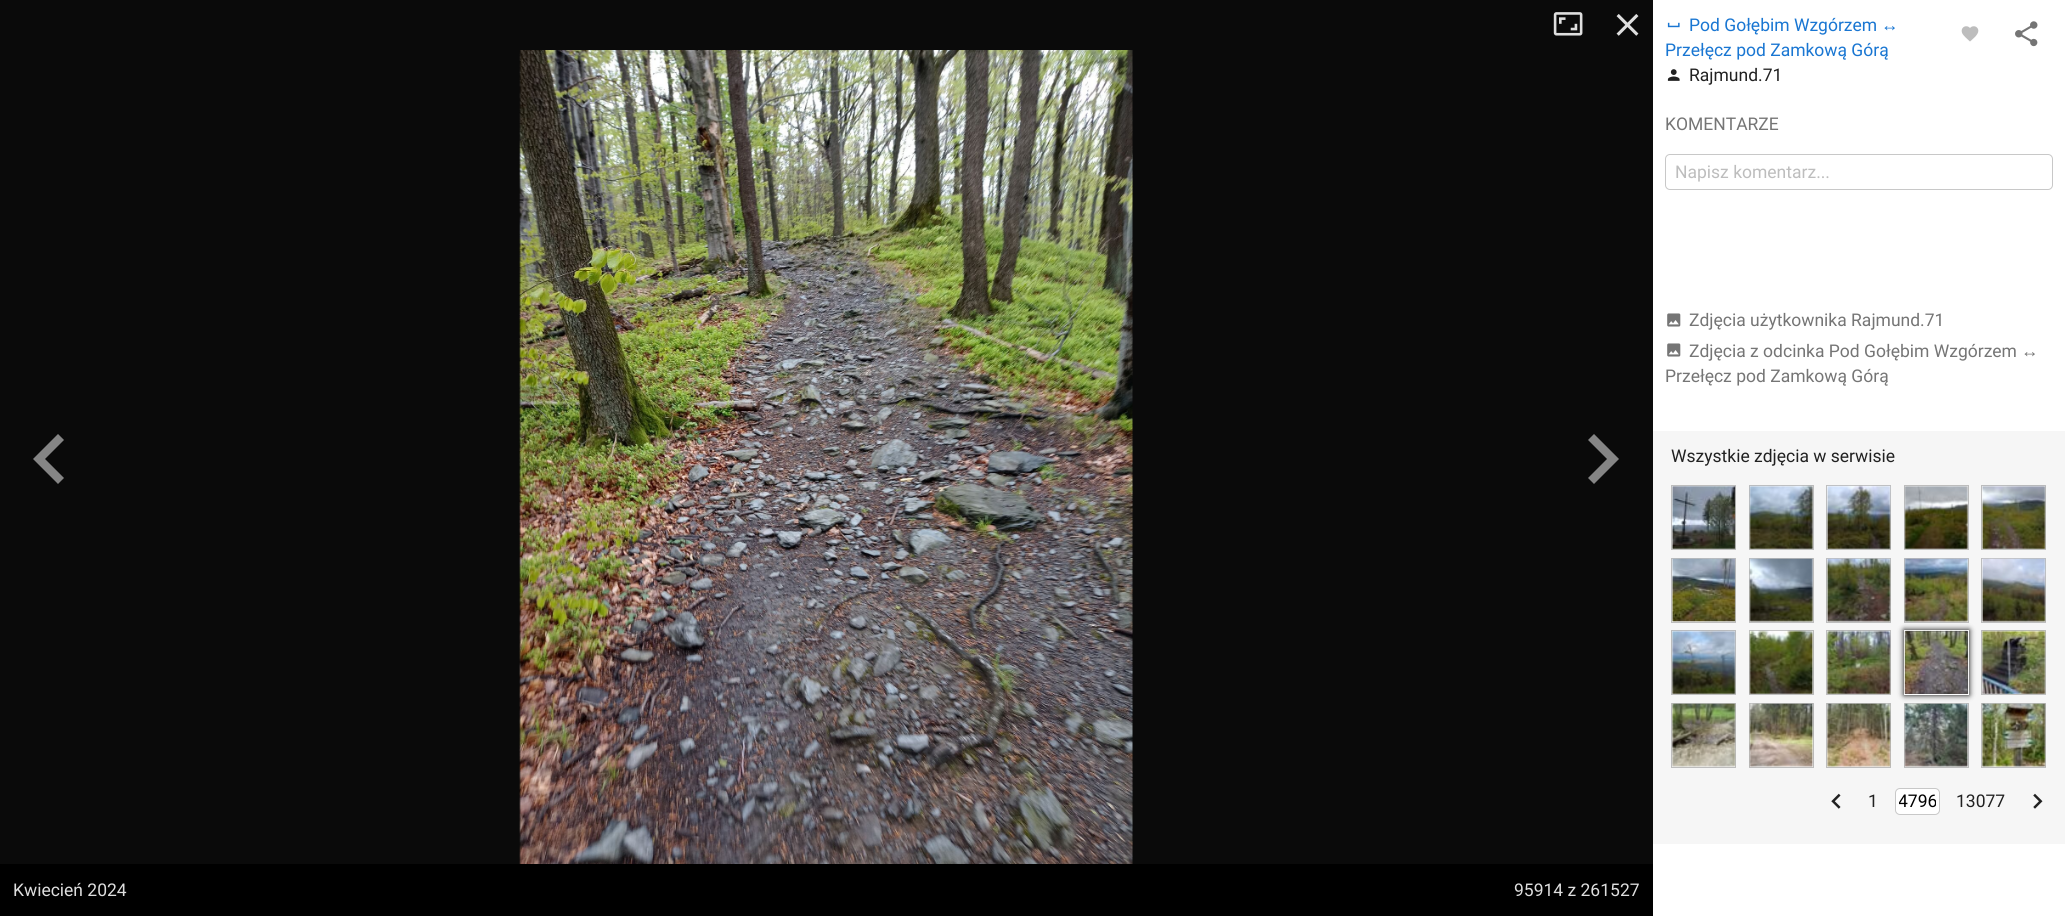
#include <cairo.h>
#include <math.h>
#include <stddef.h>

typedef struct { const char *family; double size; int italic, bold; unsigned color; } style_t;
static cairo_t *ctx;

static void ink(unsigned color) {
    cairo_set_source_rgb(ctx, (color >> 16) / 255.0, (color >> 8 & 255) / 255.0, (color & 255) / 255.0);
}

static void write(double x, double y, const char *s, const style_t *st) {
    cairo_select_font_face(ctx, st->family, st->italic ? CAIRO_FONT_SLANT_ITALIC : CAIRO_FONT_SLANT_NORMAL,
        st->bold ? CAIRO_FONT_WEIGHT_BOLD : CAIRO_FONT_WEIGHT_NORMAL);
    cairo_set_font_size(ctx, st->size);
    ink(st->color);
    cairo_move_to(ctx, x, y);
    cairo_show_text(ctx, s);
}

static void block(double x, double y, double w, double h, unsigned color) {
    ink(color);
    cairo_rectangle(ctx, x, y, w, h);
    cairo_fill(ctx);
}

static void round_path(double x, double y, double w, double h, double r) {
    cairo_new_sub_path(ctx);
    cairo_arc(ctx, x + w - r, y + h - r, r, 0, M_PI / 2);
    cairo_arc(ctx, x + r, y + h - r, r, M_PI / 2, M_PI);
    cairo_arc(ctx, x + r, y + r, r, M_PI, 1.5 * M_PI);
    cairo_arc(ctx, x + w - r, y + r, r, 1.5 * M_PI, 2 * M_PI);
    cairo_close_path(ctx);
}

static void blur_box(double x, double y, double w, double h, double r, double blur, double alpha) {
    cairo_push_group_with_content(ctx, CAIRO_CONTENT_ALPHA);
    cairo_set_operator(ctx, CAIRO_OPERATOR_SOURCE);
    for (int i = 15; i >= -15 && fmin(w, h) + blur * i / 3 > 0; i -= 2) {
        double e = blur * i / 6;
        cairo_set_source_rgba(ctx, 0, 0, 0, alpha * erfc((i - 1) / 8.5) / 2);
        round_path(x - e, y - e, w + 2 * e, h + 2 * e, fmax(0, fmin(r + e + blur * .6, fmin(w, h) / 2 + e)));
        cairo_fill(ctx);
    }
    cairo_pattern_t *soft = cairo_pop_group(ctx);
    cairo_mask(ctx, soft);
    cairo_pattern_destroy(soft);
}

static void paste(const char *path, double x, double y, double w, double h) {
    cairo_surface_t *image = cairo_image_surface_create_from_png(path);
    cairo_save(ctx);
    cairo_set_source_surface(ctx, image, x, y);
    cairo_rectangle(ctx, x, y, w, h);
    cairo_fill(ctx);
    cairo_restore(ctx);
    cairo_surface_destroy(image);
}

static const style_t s1 = {"Roboto", 17.5, 0, 0, 0x1976d2};
static const style_t s2 = {"Liberation Sans", 17.5, 0, 0, 0x1976d2};
static const style_t s3 = {"Roboto", 17.5, 0, 0, 0x212121};
static const style_t s4 = {"Roboto", 17.5, 0, 0, 0x757575};
static const style_t s5 = {"Roboto", 17.5, 0, 0, 0xbdbdbd};
static const style_t s6 = {"Liberation Sans", 17.5, 0, 0, 0x757575};
static const style_t s7 = {"Roboto", 17.5, 0, 0, 0x000000};
static const style_t s8 = {"Roboto", 17.5, 0, 0, 0xdedede};

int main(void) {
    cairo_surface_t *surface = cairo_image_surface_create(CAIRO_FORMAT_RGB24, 2065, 916);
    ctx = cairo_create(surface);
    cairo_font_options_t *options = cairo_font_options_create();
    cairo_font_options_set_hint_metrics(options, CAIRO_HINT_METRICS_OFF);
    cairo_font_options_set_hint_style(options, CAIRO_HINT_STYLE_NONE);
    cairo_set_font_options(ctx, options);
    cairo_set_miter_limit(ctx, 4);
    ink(0x0a0a0a);
    cairo_paint(ctx);
    block(1653, 0, 412, 916, 0xffffff);
    paste("pic1.png", 1667, 22, 13, 6);
    write(1689, 31, "Pod Gołębim Wzgórzem", &s1);
    write(1881, 31, "↔", &s2);
    write(1665, 56, "Przełęcz pod Zamkową Górą", &s1);
    paste("pic2.png", 1667, 69, 13, 12);
    write(1689, 81, "Rajmund.71", &s3);
    paste("pic3.png", 1961, 26, 18, 16);
    paste("pic4.png", 2015, 21, 23, 26);
    write(1665, 130, "KOMENTARZE", &s4);
    round_path(1665.5, 154.5, 387, 35, 4.5);
    ink(0xc8c8c8);
    cairo_set_line_width(ctx, 1);
    cairo_stroke(ctx);
    write(1675, 178, "Napisz komentarz...", &s5);
    paste("pic5.png", 1667, 313, 14, 14);
    write(1689, 326, "Zdjęcia użytkownika Rajmund.71", &s4);
    paste("pic5.png", 1667, 343, 14, 14);
    write(1689, 357, "Zdjęcia z odcinka Pod Gołębim Wzgórzem", &s4);
    write(2021, 357, "↔", &s6);
    write(1665, 382, "Przełęcz pod Zamkową Górą", &s4);
    block(1653, 431, 412, 413, 0xf6f6f6);
    write(1671, 462, "Wszystkie zdjęcia w serwisie", &s3);
    cairo_rectangle(ctx, 1671.5, 485.5, 64, 64);
    ink(0xbdbdbd);
    cairo_stroke(ctx);
    paste("pic6.png", 1672, 486, 64, 63);
    cairo_rectangle(ctx, 1749.5, 485.5, 64, 64);
    cairo_stroke(ctx);
    paste("pic7.png", 1749, 485, 64, 64);
    cairo_rectangle(ctx, 1826.5, 485.5, 64, 64);
    cairo_stroke(ctx);
    paste("pic8.png", 1826, 485, 65, 64);
    cairo_rectangle(ctx, 1904.5, 485.5, 64, 64);
    cairo_stroke(ctx);
    paste("pic9.png", 1904, 486, 64, 63);
    cairo_rectangle(ctx, 1981.5, 485.5, 64, 64);
    cairo_stroke(ctx);
    paste("pic10.png", 1981, 485, 65, 64);
    cairo_rectangle(ctx, 1671.5, 558.5, 64, 64);
    cairo_stroke(ctx);
    paste("pic11.png", 1672, 558, 64, 64);
    cairo_rectangle(ctx, 1749.5, 558.5, 64, 64);
    cairo_stroke(ctx);
    paste("pic12.png", 1749, 558, 64, 64);
    cairo_rectangle(ctx, 1826.5, 558.5, 64, 64);
    cairo_stroke(ctx);
    paste("pic13.png", 1826, 558, 65, 64);
    cairo_rectangle(ctx, 1904.5, 558.5, 64, 64);
    cairo_stroke(ctx);
    paste("pic14.png", 1904, 558, 64, 64);
    cairo_rectangle(ctx, 1981.5, 558.5, 64, 64);
    cairo_stroke(ctx);
    paste("pic15.png", 1981, 558, 65, 64);
    cairo_rectangle(ctx, 1671.5, 630.5, 64, 64);
    cairo_stroke(ctx);
    paste("pic16.png", 1672, 630, 64, 64);
    cairo_rectangle(ctx, 1749.5, 630.5, 64, 64);
    cairo_stroke(ctx);
    paste("pic17.png", 1749, 630, 65, 64);
    cairo_rectangle(ctx, 1826.5, 630.5, 64, 64);
    cairo_stroke(ctx);
    paste("pic18.png", 1827, 630, 64, 64);
    ink(0x000000);
    blur_box(1904, 630, 65, 65, 0, 3, 1);
    cairo_rectangle(ctx, 1904.5, 630.5, 64, 64);
    ink(0xffffff);
    cairo_stroke(ctx);
    paste("pic19.png", 1904, 630, 65, 64);
    cairo_rectangle(ctx, 1981.5, 630.5, 64, 64);
    ink(0xbdbdbd);
    cairo_stroke(ctx);
    paste("pic20.png", 1982, 630, 64, 64);
    cairo_rectangle(ctx, 1671.5, 703.5, 64, 64);
    cairo_stroke(ctx);
    paste("pic21.png", 1672, 703, 64, 64);
    cairo_rectangle(ctx, 1749.5, 703.5, 64, 64);
    cairo_stroke(ctx);
    paste("pic22.png", 1749, 703, 65, 64);
    cairo_rectangle(ctx, 1826.5, 703.5, 64, 64);
    cairo_stroke(ctx);
    paste("pic23.png", 1827, 703, 64, 64);
    cairo_rectangle(ctx, 1904.5, 703.5, 64, 64);
    cairo_stroke(ctx);
    paste("pic24.png", 1904, 703, 65, 64);
    cairo_rectangle(ctx, 1981.5, 703.5, 64, 64);
    cairo_stroke(ctx);
    paste("pic25.png", 1982, 703, 64, 64);
    paste("pic26.png", 1831, 793, 10, 16);
    write(1868, 807, "1", &s3);
    ink(0xffffff);
    round_path(1895.5, 788.5, 44, 26, 4.5);
    cairo_fill_preserve(ctx);
    ink(0xc8c8c8);
    cairo_stroke(ctx);
    cairo_save(ctx);
    cairo_rectangle(ctx, 1899, 791, 37, 20);
    cairo_clip(ctx);
    write(1898, 807, "4796", &s7);
    cairo_restore(ctx);
    write(1956, 807, "13077", &s3);
    paste("pic27.png", 2033, 793, 10, 16);
    paste("pic28.png", 1553, 12, 30, 24);
    paste("pic29.png", 1616, 14, 23, 22);
    ink(0x858585);
    cairo_new_path(ctx);
    cairo_move_to(ctx, 64, 440);
    cairo_line_to(ctx, 58, 434);
    cairo_line_to(ctx, 33, 459);
    cairo_line_to(ctx, 58, 484);
    cairo_line_to(ctx, 64, 478);
    cairo_line_to(ctx, 45, 459);
    cairo_close_path(ctx);
    cairo_fill(ctx);
    paste("pic30.png", 519, 50, 614, 814);
    cairo_new_path(ctx);
    cairo_move_to(ctx, 1594, 434);
    cairo_line_to(ctx, 1588, 440);
    cairo_line_to(ctx, 1607, 459);
    cairo_line_to(ctx, 1588, 478);
    cairo_line_to(ctx, 1594, 484);
    cairo_line_to(ctx, 1619, 459);
    cairo_close_path(ctx);
    cairo_fill(ctx);
    block(0, 864, 1653, 52, 0x000000);
    write(13, 896, "Kwiecień 2024", &s8);
    write(1514, 896, "95914 z 261527", &s8);
    cairo_surface_write_to_png(surface, "screenshot.png");
    cairo_font_options_destroy(options);
    cairo_destroy(ctx);
    cairo_surface_destroy(surface);
    return 0;
}
